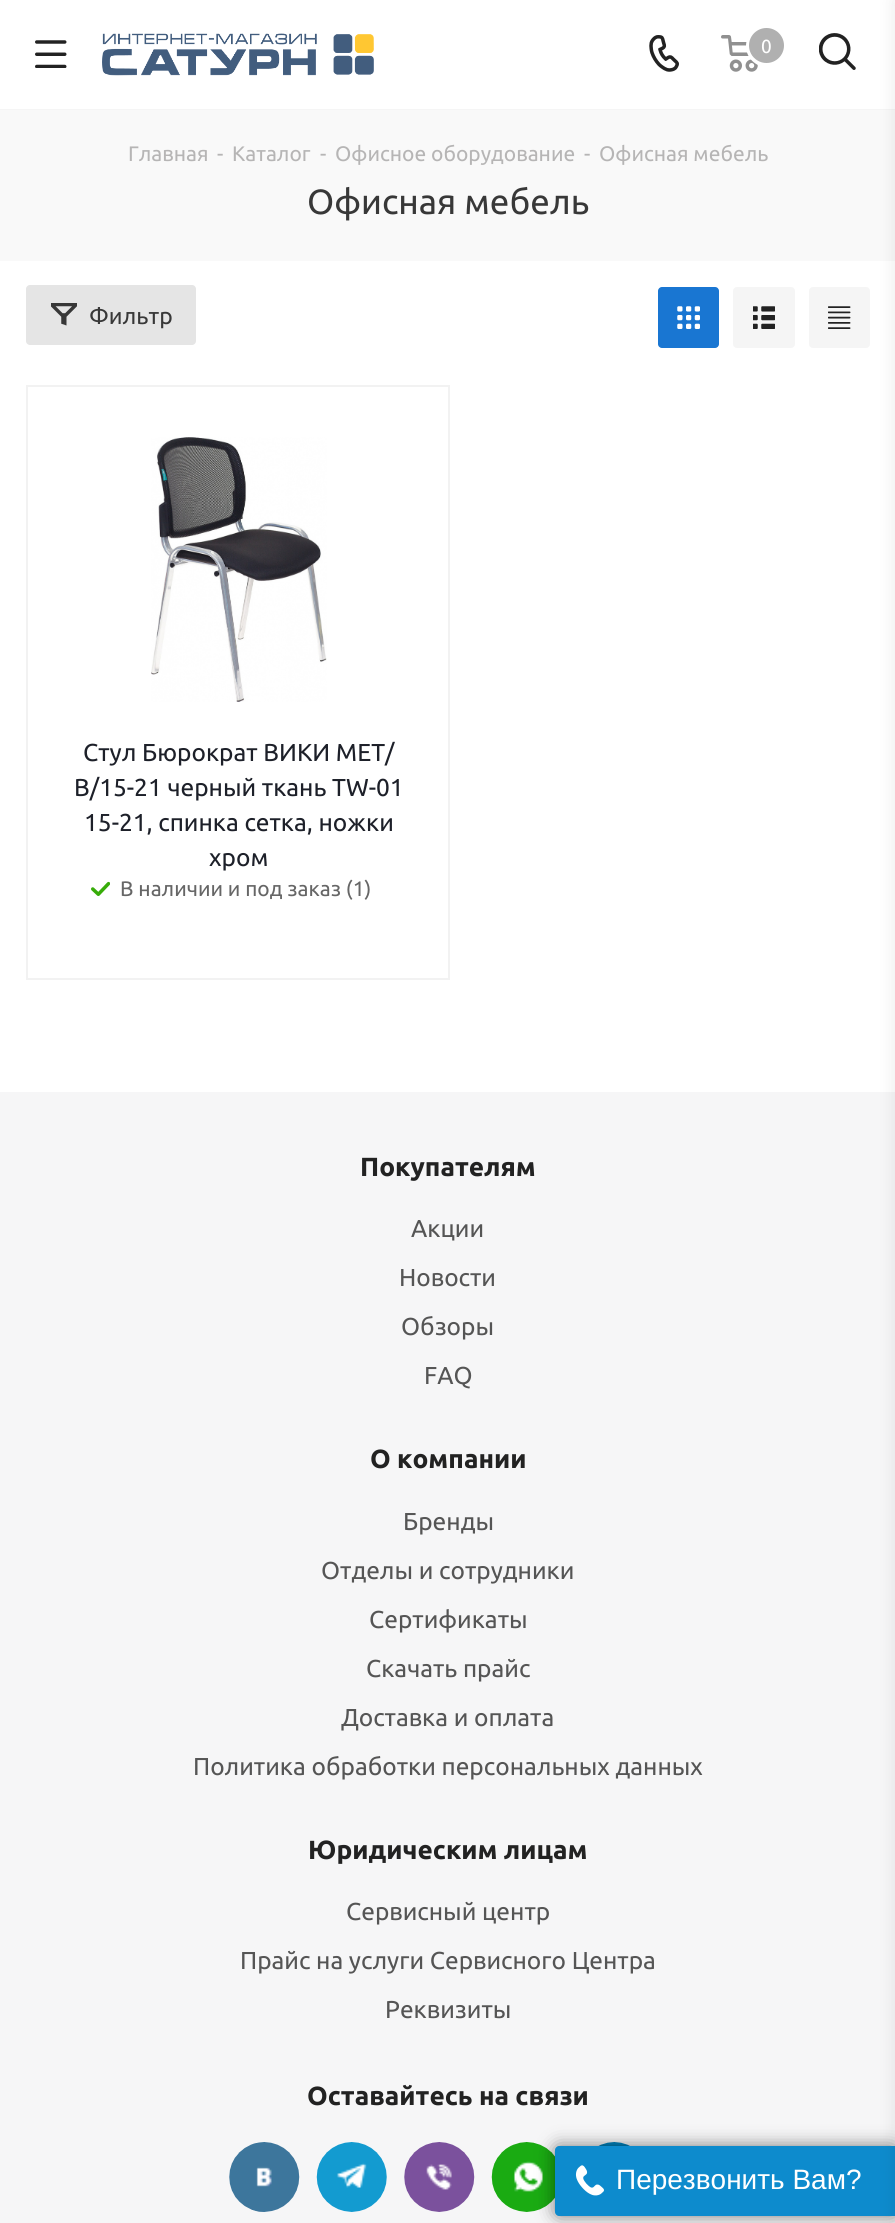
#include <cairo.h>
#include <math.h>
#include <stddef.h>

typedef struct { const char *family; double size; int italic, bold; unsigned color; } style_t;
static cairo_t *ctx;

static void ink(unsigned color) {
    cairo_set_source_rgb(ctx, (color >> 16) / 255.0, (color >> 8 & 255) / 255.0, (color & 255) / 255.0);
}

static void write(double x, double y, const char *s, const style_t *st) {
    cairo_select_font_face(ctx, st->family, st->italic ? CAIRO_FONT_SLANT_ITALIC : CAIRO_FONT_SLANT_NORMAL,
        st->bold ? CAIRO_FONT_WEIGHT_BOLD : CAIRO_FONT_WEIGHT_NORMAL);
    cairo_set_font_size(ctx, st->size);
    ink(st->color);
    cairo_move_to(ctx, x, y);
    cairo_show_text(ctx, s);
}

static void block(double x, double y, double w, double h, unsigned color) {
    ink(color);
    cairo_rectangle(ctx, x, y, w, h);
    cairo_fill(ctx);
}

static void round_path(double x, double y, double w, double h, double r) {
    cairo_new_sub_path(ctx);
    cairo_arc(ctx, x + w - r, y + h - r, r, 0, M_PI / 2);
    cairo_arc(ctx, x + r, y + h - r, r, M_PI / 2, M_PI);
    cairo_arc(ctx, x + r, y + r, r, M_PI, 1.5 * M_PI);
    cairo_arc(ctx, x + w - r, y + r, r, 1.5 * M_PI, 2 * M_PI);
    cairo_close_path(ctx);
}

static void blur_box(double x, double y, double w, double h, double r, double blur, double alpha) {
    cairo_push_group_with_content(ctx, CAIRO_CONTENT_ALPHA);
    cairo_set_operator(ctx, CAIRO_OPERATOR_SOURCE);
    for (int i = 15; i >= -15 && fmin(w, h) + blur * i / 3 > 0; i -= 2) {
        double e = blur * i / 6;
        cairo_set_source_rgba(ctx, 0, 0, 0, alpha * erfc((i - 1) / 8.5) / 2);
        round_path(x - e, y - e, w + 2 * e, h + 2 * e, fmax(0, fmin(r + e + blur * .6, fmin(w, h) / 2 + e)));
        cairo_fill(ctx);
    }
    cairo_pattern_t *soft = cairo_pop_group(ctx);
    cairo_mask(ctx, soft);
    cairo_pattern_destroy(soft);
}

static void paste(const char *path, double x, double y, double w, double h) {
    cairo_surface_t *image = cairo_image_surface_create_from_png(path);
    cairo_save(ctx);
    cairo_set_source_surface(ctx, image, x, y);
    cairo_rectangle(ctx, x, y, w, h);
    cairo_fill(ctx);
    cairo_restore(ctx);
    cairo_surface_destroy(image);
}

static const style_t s1 = {"Ubuntu", 19, 0, 0, 0xffffff};
static const style_t s2 = {"Ubuntu", 21, 0, 0, 0xb6b5b5};
static const style_t s3 = {"Ubuntu", 35, 0, 0, 0x383838};
static const style_t s4 = {"Ubuntu", 23, 0, 0, 0x383838};
static const style_t s5 = {"Ubuntu", 24.5, 0, 0, 0x1d2029};
static const style_t s6 = {"Ubuntu", 21, 0, 0, 0x666666};
static const style_t s7 = {"Ubuntu", 26.25, 0, 1, 0x222222};
static const style_t s8 = {"Ubuntu", 24.5, 0, 0, 0x555555};
static const style_t s9 = {"Liberation Sans", 28, 0, 0, 0xffffff};

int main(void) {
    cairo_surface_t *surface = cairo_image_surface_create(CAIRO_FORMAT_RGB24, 895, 2223);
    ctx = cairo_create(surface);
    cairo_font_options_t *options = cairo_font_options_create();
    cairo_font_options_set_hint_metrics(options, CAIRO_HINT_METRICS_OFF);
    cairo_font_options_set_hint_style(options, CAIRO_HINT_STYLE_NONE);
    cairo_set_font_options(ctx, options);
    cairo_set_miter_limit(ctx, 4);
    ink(0xffffff);
    cairo_paint(ctx);
    block(0, 109, 895, 1, 0xf5f5f5);
    paste("pic1.png", 35, 40, 32, 28);
    paste("pic2.png", 102, 33, 272, 43);
    paste("pic3.png", 649, 35, 30, 37);
    paste("pic4.png", 721, 35, 37, 37);
    cairo_arc(ctx, 767, 46, 19, 0, 2 * M_PI);
    ink(0xffffff);
    cairo_set_line_width(ctx, 4);
    cairo_stroke(ctx);
    ink(0xb0b0b0);
    cairo_arc(ctx, 766.5, 45.5, 17.5, 0, 2 * M_PI);
    cairo_fill(ctx);
    write(761, 53, "0", &s1);
    paste("pic5.png", 819, 33, 37, 37);
    block(0, 110, 895, 151, 0xf9f9f9);
    write(128, 161, "Главная", &s2);
    write(217, 161, "-", &s2);
    write(232, 161, "Каталог", &s2);
    write(320, 161, "-", &s2);
    write(335, 161, "Офисное оборудование", &s2);
    write(584, 161, "-", &s2);
    write(599, 161, "Офисная мебель", &s2);
    write(307, 214, "Офисная мебель", &s3);
    ink(0xe5e5e5);
    round_path(26, 285, 170, 60, 4);
    cairo_fill(ctx);
    paste("pic6.png", 51, 303, 26, 23);
    write(89, 324, "Фильтр", &s4);
    ink(0x1976d2);
    round_path(658, 287, 61, 61, 4);
    cairo_fill(ctx);
    paste("pic7.png", 677, 306, 23, 23);
    ink(0xf5f5f5);
    round_path(733, 287, 62, 61, 4);
    cairo_fill(ctx);
    paste("pic8.png", 753, 306, 22, 23);
    round_path(809, 287, 61, 61, 4);
    cairo_fill(ctx);
    paste("pic9.png", 828, 306, 23, 23);
    cairo_rectangle(ctx, 27, 386, 422, 593);
    ink(0xf2f2f2);
    cairo_set_line_width(ctx, 2);
    cairo_stroke(ctx);
    paste("pic10.png", 151, 437, 176, 265);
    write(83, 761, "Стул Бюрократ ВИКИ МЕТ/", &s5);
    write(74, 796, "В/15-21 черный ткань TW-01", &s5);
    write(84, 831, "15-21, спинка сетка, ножки", &s5);
    write(209, 866, "хром", &s5);
    paste("pic11.png", 91, 881, 19, 15);
    write(120, 896, "В наличии и под заказ (1)", &s6);
    block(0, 1092, 895, 1131, 0xf6f6f7);
    write(360, 1176, "Покупателям", &s7);
    write(411, 1237, "Акции", &s8);
    write(399, 1286, "Новости", &s8);
    write(401, 1335, "Обзоры", &s8);
    write(424, 1384, "FAQ", &s8);
    write(370, 1468, "О компании", &s7);
    write(403, 1530, "Бренды", &s8);
    write(321, 1579, "Отделы и сотрудники", &s8);
    write(369, 1628, "Сертификаты", &s8);
    write(366, 1677, "Скачать прайс", &s8);
    write(341, 1726, "Доставка и оплата", &s8);
    write(193, 1775, "Политика обработки персональных данных", &s8);
    write(308, 1859, "Юридическим лицам", &s7);
    write(346, 1920, "Сервисный центр", &s8);
    write(240, 1969, "Прайс на услуги Сервисного Центра", &s8);
    write(385, 2018, "Реквизиты", &s8);
    write(307, 2105, "Оставайтесь на связи", &s7);
    paste("pic12.png", 229, 2142, 71, 70);
    paste("pic13.png", 316, 2142, 71, 70);
    paste("pic14.png", 404, 2142, 71, 70);
    paste("pic15.png", 491, 2142, 64, 70);
    paste("pic16.png", 598, 2142, 32, 4);
    ink(0x000000);
    blur_box(555, 2146, 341, 70, 4, 9, 0.5);
    ink(0x0d8bcd);
    cairo_new_path(ctx);
    cairo_move_to(ctx, 559, 2146);
    cairo_line_to(ctx, 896, 2146);
    cairo_line_to(ctx, 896, 2216);
    cairo_line_to(ctx, 559, 2216);
    cairo_curve_to(ctx, 557, 2216, 555, 2214, 555, 2212);
    cairo_line_to(ctx, 555, 2150);
    cairo_curve_to(ctx, 555, 2148, 557, 2146, 559, 2146);
    cairo_close_path(ctx);
    cairo_fill(ctx);
    paste("pic17.png", 575, 2165, 29, 31);
    write(616, 2189, "Перезвонить Вам?", &s9);
    ink(0x000000);
    blur_box(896, 0, 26, 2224, 0, 9, 0.1);
    cairo_surface_write_to_png(surface, "screenshot.png");
    cairo_font_options_destroy(options);
    cairo_destroy(ctx);
    cairo_surface_destroy(surface);
    return 0;
}
